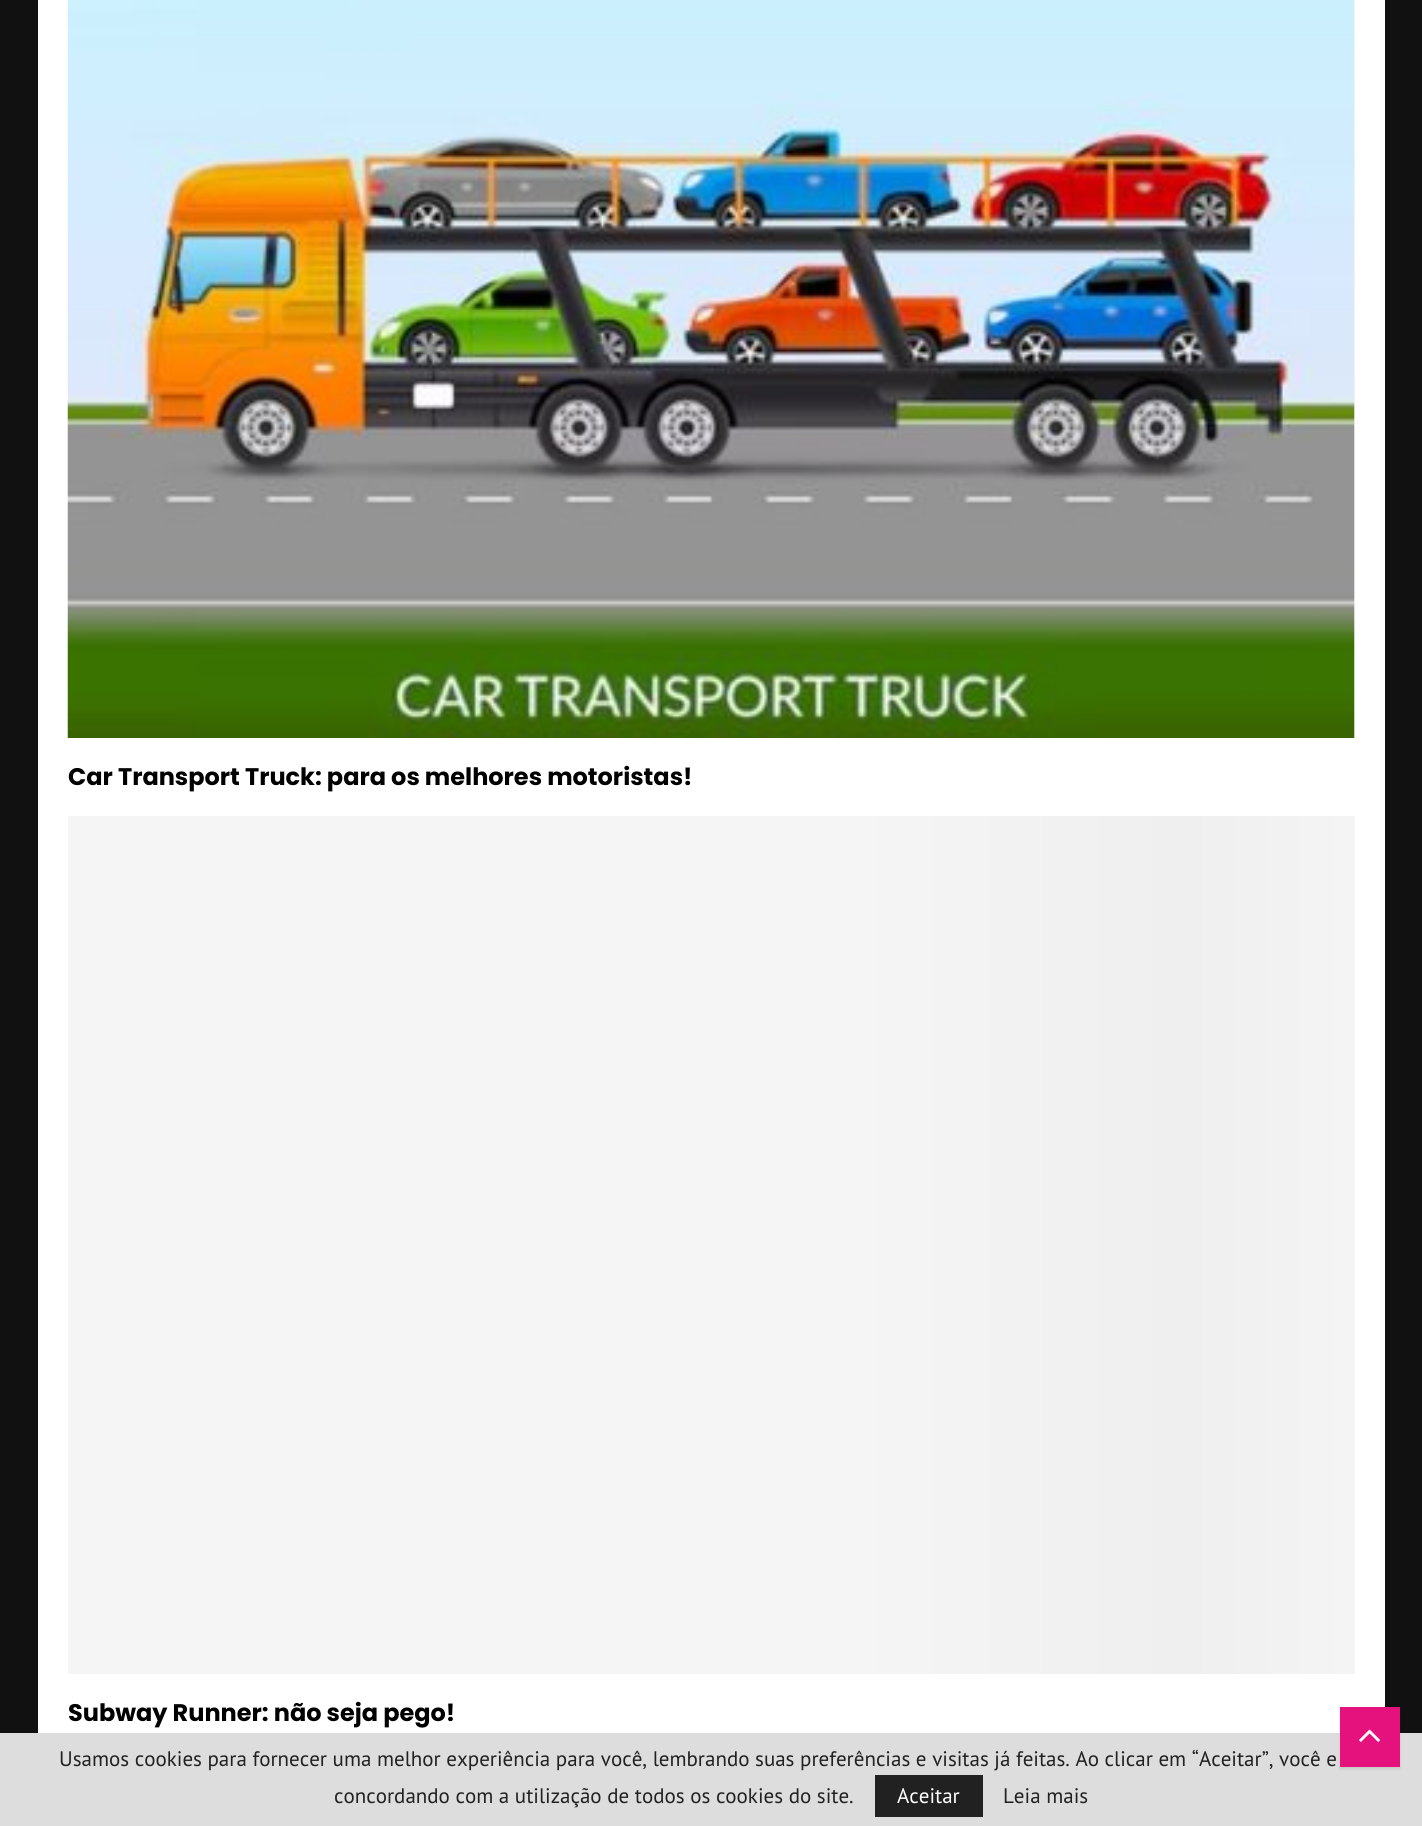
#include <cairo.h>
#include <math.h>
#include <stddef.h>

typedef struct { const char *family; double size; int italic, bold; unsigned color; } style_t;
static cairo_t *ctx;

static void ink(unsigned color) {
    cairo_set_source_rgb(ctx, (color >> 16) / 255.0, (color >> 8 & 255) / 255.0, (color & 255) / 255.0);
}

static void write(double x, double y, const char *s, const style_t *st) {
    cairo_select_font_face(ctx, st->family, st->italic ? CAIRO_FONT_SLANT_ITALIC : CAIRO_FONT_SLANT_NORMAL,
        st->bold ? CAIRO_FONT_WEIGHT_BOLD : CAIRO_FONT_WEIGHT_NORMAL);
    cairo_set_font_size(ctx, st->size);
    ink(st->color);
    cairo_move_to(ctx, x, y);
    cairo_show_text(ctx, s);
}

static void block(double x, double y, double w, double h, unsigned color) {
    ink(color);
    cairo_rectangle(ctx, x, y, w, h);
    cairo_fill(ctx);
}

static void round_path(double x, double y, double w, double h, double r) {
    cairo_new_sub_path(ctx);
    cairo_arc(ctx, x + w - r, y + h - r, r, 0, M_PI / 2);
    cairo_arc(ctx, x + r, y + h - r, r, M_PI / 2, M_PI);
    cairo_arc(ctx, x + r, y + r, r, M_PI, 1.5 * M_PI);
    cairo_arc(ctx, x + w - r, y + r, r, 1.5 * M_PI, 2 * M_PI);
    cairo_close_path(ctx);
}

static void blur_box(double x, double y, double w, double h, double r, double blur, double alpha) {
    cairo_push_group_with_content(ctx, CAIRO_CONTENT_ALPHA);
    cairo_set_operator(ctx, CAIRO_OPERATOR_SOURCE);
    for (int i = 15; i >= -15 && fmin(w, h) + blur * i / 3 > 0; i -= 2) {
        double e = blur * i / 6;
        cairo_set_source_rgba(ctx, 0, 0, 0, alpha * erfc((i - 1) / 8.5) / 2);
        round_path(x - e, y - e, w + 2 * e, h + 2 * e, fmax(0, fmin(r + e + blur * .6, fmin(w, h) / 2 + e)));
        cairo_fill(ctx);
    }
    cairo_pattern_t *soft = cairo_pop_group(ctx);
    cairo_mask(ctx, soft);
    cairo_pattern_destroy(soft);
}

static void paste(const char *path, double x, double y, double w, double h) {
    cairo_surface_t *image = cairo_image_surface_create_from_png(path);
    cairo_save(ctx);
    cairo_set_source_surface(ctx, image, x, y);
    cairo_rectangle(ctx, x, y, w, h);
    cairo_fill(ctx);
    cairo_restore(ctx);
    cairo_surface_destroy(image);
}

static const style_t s1 = {"Poppins", 24, 0, 1, 0x000000};
static const style_t s2 = {"PT Sans", 21, 0, 0, 0x212121};
static const style_t s3 = {"PT Sans", 21, 0, 0, 0xffffff};

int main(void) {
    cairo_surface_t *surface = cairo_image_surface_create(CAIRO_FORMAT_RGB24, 1422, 1826);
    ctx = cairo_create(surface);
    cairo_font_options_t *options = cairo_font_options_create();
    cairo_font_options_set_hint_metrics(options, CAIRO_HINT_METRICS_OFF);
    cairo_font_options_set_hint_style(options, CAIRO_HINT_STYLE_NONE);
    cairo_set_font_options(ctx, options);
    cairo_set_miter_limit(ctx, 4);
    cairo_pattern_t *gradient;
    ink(0x111111);
    cairo_paint(ctx);
    block(38, 0, 1347, 1733, 0xffffff);
    block(1354, 0, 1, 738, 0xf5f5f5);
    paste("pic1.png", 67, 0, 1288, 738);
    write(68, 785, "Car Transport Truck: para os melhores motoristas!", &s1);
    gradient = cairo_pattern_create_linear(1386, 1245, 36, 1245);
    cairo_pattern_add_color_stop_rgba(gradient, 0, 0.961, 0.961, 0.961, 1);
    cairo_pattern_add_color_stop_rgba(gradient, 0.15, 0.937, 0.937, 0.937, 1);
    cairo_pattern_add_color_stop_rgba(gradient, 0.4, 0.961, 0.961, 0.961, 1);
    cairo_pattern_add_color_stop_rgba(gradient, 1, 0.961, 0.961, 0.961, 1);
    cairo_set_source(ctx, gradient);
    cairo_pattern_destroy(gradient);
    cairo_rectangle(ctx, 68, 816, 1287, 858);
    cairo_fill(ctx);
    write(68, 1721, "Subway Runner: não seja pego!", &s1);
    block(0, 1733, 1422, 93, 0xdddddd);
    write(59, 1766, "Usamos cookies para fornecer uma melhor experiência para você, lembrando suas preferências e visitas já feitas. Ao clicar em “Aceitar”, você e", &s2);
    write(334, 1803, "concordando com a utilização de todos os cookies do site.", &s2);
    block(875, 1775, 108, 42, 0x212121);
    write(897, 1803, "Aceitar", &s3);
    write(1003, 1803, "Leia mais", &s2);
    ink(0x000000);
    blur_box(1340, 1709, 60, 60, 0, 1.5, 0.1);
    block(1340, 1707, 60, 60, 0xe5127d);
    paste("pic2.png", 1359, 1729, 21, 13);
    cairo_surface_write_to_png(surface, "screenshot.png");
    cairo_font_options_destroy(options);
    cairo_destroy(ctx);
    cairo_surface_destroy(surface);
    return 0;
}
